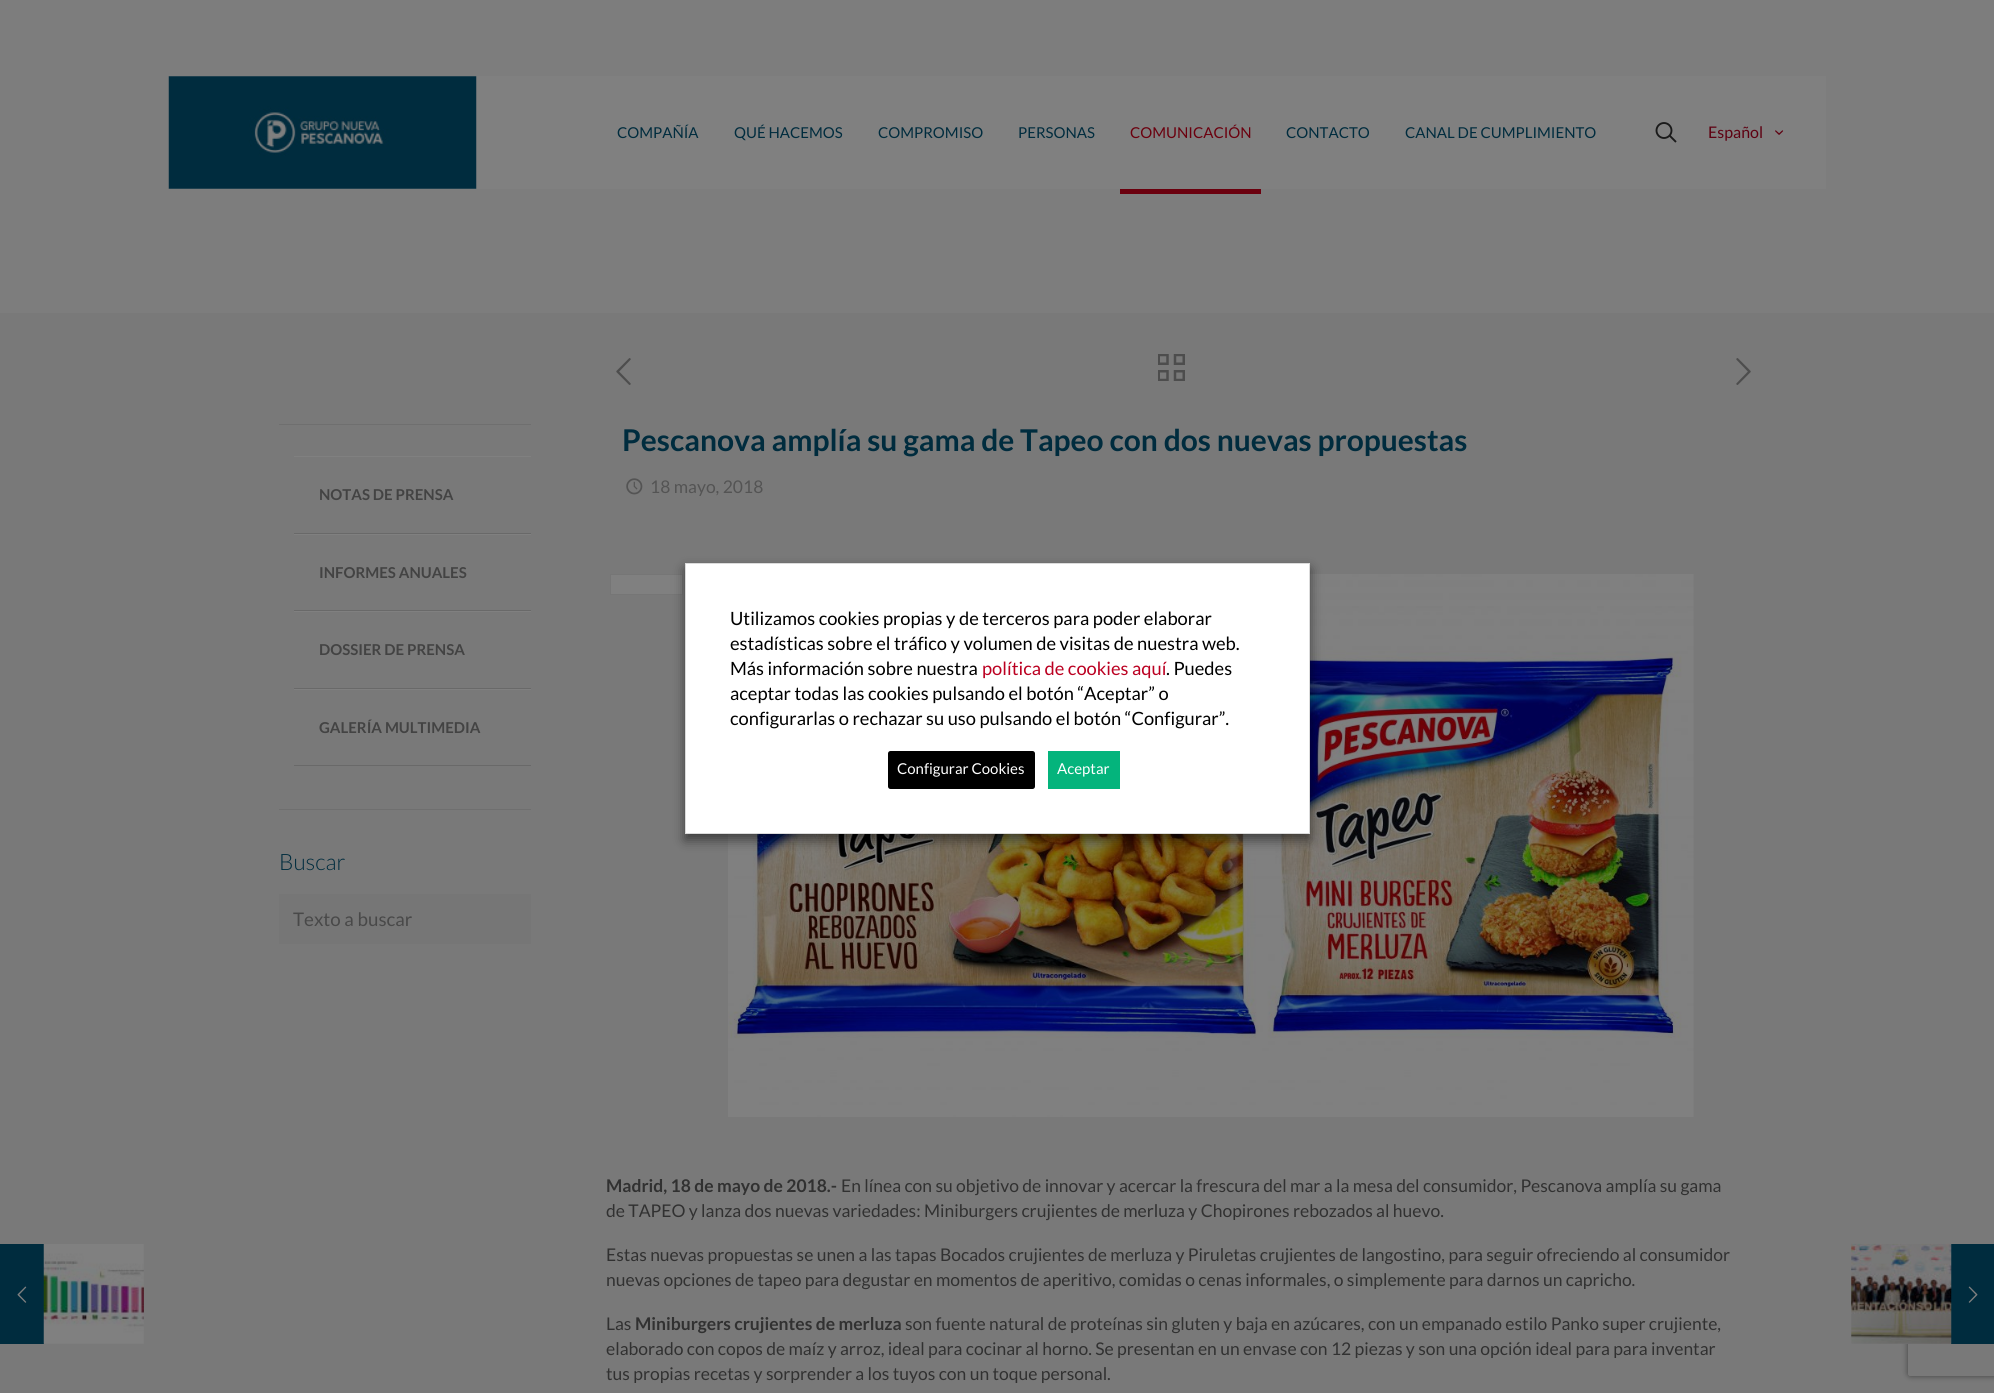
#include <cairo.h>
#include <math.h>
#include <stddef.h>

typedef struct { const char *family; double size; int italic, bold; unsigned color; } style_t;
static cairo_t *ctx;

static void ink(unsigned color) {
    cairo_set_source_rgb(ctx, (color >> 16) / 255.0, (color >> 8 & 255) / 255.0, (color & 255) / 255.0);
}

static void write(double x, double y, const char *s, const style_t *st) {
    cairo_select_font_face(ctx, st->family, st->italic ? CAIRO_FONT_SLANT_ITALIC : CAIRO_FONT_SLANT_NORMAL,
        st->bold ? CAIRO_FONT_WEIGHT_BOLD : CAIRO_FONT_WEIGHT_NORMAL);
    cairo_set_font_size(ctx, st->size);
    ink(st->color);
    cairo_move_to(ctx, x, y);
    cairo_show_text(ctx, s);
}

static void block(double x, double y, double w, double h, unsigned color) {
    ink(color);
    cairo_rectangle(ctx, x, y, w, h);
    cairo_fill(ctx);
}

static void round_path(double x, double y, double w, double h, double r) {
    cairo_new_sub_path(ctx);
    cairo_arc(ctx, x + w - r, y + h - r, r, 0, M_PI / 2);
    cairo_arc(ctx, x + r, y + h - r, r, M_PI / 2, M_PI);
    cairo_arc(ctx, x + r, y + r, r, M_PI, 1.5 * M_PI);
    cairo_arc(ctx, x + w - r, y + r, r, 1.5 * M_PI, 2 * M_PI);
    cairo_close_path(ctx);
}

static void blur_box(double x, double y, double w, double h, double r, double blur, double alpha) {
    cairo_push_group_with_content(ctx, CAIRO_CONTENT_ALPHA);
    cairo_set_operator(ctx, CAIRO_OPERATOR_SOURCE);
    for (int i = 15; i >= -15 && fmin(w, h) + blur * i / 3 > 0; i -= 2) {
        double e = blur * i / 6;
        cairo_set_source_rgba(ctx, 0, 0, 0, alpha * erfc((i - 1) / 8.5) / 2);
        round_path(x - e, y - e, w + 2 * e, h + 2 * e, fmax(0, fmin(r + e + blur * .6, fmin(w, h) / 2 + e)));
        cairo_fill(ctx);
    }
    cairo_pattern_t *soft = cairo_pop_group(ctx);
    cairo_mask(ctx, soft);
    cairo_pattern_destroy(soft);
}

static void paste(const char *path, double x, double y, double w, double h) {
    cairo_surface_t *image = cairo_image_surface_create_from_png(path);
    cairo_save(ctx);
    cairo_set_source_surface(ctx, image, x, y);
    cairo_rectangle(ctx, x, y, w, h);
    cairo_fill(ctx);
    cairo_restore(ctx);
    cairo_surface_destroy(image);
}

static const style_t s1 = {"Lato", 15, 0, 0, 0x002c3e};
static const style_t s2 = {"Lato", 15, 0, 0, 0x6b000e};
static const style_t s3 = {"Lato", 16, 0, 0, 0x5e0011};
static const style_t s4 = {"Lato", 15, 0, 1, 0x434343};
static const style_t s5 = {"Lato Light", 22.5, 0, 0, 0x002c3e};
static const style_t s6 = {"Lato", 18.75, 0, 0, 0x494949};
static const style_t s7 = {"Lato", 30, 0, 1, 0x002c3e};
static const style_t s8 = {"Lato", 17.5, 0, 0, 0x545454};
static const style_t s9 = {"Lato", 17.5, 0, 1, 0x313131};
static const style_t s10 = {"Lato", 17.5, 0, 0, 0x313131};
static const style_t s11 = {"Lato", 18.3, 0, 0, 0x000000};
static const style_t s12 = {"Lato", 18.3, 0, 0, 0xbb0021};
static const style_t s13 = {"Lato", 15, 0, 0, 0xffffff};

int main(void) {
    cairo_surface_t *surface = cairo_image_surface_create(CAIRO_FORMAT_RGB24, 1994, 1393);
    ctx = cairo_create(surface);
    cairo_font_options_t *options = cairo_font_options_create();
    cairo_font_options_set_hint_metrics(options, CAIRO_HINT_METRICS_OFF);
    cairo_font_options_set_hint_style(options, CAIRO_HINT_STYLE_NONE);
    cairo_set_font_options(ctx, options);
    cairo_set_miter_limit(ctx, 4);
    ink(0x797979);
    cairo_paint(ctx);
    block(0, 0, 1994, 313, 0x7d7d7d);
    block(169, 76, 1437, 113, 0x808080);
    paste("pic1.png", 168, 76, 309, 113);
    write(617, 138, "COMPAÑÍA", &s1);
    write(734, 138, "QUÉ HACEMOS", &s1);
    write(878, 138, "COMPROMISO", &s1);
    write(1018, 138, "PERSONAS", &s1);
    write(1130, 138, "COMUNICACIÓN", &s2);
    block(1120, 189, 141, 5, 0x6b000e);
    write(1286, 138, "CONTACTO", &s1);
    write(1405, 138, "CANAL DE CUMPLIMIENTO", &s1);
    block(1606, 76, 220, 113, 0x808080);
    cairo_new_path(ctx);
    cairo_arc(ctx, 1664, 130.5, 7.5, 0, 2 * M_PI);
    ink(0x1a1a1a);
    cairo_set_line_width(ctx, 1.9);
    cairo_stroke(ctx);
    cairo_new_path(ctx);
    cairo_move_to(ctx, 1669.5, 135.5);
    cairo_line_to(ctx, 1676, 142);
    cairo_stroke(ctx);
    write(1708, 138, "Español", &s3);
    paste("pic2.png", 1775, 130, 9, 5);
    block(279, 424, 252, 1, 0x6f6f6f);
    block(294, 456, 237, 1, 0x808080);
    block(294, 533, 237, 1, 0x696969);
    write(319, 500, "NOTAS DE PRENSA", &s4);
    block(294, 534, 237, 1, 0x808080);
    block(294, 610, 237, 1, 0x696969);
    write(319, 578, "INFORMES ANUALES", &s4);
    block(294, 611, 237, 1, 0x808080);
    block(294, 688, 237, 1, 0x696969);
    write(319, 655, "DOSSIER DE PRENSA", &s4);
    block(294, 689, 237, 1, 0x808080);
    block(294, 765, 237, 1, 0x696969);
    write(319, 733, "GALERÍA MULTIMEDIA", &s4);
    block(279, 809, 252, 1, 0x6f6f6f);
    write(279, 870, "Buscar", &s5);
    block(279, 894, 252, 50, 0x767676);
    write(293, 926, "Texto a buscar", &s6);
    paste("pic3.png", 616, 358, 15, 27);
    paste("pic4.png", 1158, 354, 27, 27);
    paste("pic5.png", 1736, 358, 15, 27);
    write(622, 451, "Pescanova amplía su gama de Tapeo con dos nuevas propuestas", &s7);
    paste("pic6.png", 626, 478, 17, 17);
    write(650, 493, "18 mayo, 2018", &s8);
    ink(0x808080);
    cairo_rectangle(ctx, 610.5, 574.5, 72, 20);
    cairo_fill_preserve(ctx);
    ink(0x767676);
    cairo_set_line_width(ctx, 1);
    cairo_stroke(ctx);
    paste("pic7.png", 728, 574, 966, 543);
    write(606, 1192, "Madrid, 18 de mayo de 2018.-", &s9);
    write(841, 1192, "En línea con su objetivo de innovar y acercar la frescura del mar a la mesa del consumidor, Pescanova amplía su gama", &s10);
    write(606, 1217, "de TAPEO y lanza dos nuevas variedades: Miniburgers crujientes de merluza y Chopirones rebozados al huevo.", &s10);
    write(606, 1261, "Estas nuevas propuestas se unen a las tapas Bocados crujientes de merluza y Piruletas crujientes de langostino, para seguir ofreciendo al consumidor", &s10);
    write(606, 1286, "nuevas opciones de tapeo para degustar en momentos de aperitivo, comidas o cenas informales, o simplemente para darnos un capricho.", &s10);
    write(606, 1330, "Las", &s10);
    write(635, 1330, "Miniburgers crujientes de merluza", &s9);
    write(905, 1330, "son fuente natural de proteínas sin gluten y baja en azúcares, con un empanado estilo Panko super crujiente,", &s10);
    write(606, 1355, "elaborado con copos de maíz y arroz, ideal para cocinar al horno. Se presentan en un envase con 12 piezas y son una opción ideal para para inventar", &s10);
    write(606, 1380, "tus propias recetas y sorprender a los tuyos con un toque personal.", &s10);
    ink(0x000000);
    blur_box(685, 569, 625, 271, 0, 6, 0.5);
    ink(0xffffff);
    cairo_rectangle(ctx, 685.5, 563.5, 624, 270);
    cairo_fill_preserve(ctx);
    ink(0xdbdbdb);
    cairo_stroke(ctx);
    write(730, 625, "Utilizamos cookies propias y de terceros para poder elaborar", &s11);
    write(730, 650, "estadísticas sobre el tráfico y volumen de visitas de nuestra web.", &s11);
    write(730, 675, "Más información sobre nuestra", &s11);
    write(982, 675, "política de cookies aquí", &s12);
    write(1166, 675, ". Puedes", &s11);
    write(730, 700, "aceptar todas las cookies pulsando el botón “Aceptar” o", &s11);
    write(730, 725, "configurarlas o rechazar su uso pulsando el botón “Configurar”.", &s11);
    round_path(888, 751, 147, 38, 2.5);
    cairo_fill(ctx);
    write(897, 774, "Configurar Cookies", &s13);
    block(1048, 751, 72, 38, 0x04b47c);
    write(1057, 774, "Aceptar", &s13);
    block(0, 1244, 44, 100, 0x002c3e);
    paste("pic8.png", 17, 1286, 10, 17);
    paste("pic9.png", 43, 1244, 101, 100);
    cairo_save(ctx);
    cairo_set_fill_rule(ctx, CAIRO_FILL_RULE_EVEN_ODD);
    cairo_new_path(ctx);
    cairo_move_to(ctx, 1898, 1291);
    cairo_line_to(ctx, 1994, 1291);
    cairo_line_to(ctx, 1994, 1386);
    cairo_line_to(ctx, 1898, 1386);
    cairo_close_path(ctx);
    cairo_move_to(ctx, 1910.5, 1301);
    cairo_line_to(ctx, 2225.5, 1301);
    cairo_curve_to(ctx, 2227, 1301, 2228, 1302, 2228, 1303.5);
    cairo_line_to(ctx, 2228, 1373.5);
    cairo_curve_to(ctx, 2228, 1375, 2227, 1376, 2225.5, 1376);
    cairo_line_to(ctx, 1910.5, 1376);
    cairo_curve_to(ctx, 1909, 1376, 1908, 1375, 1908, 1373.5);
    cairo_line_to(ctx, 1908, 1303.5);
    cairo_curve_to(ctx, 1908, 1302, 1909, 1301, 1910.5, 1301);
    cairo_close_path(ctx);
    cairo_clip(ctx);
    ink(0x404040);
    blur_box(1908, 1301, 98, 75, 2.5, 3, 1);
    cairo_restore(ctx);
    block(1904, 1297, 47, 47, 0x777777);
    block(1951, 1244, 43, 100, 0x002c3e);
    paste("pic10.png", 1851, 1243, 101, 101);
    paste("pic11.png", 1968, 1286, 10, 17);
    cairo_surface_write_to_png(surface, "screenshot.png");
    cairo_font_options_destroy(options);
    cairo_destroy(ctx);
    cairo_surface_destroy(surface);
    return 0;
}
